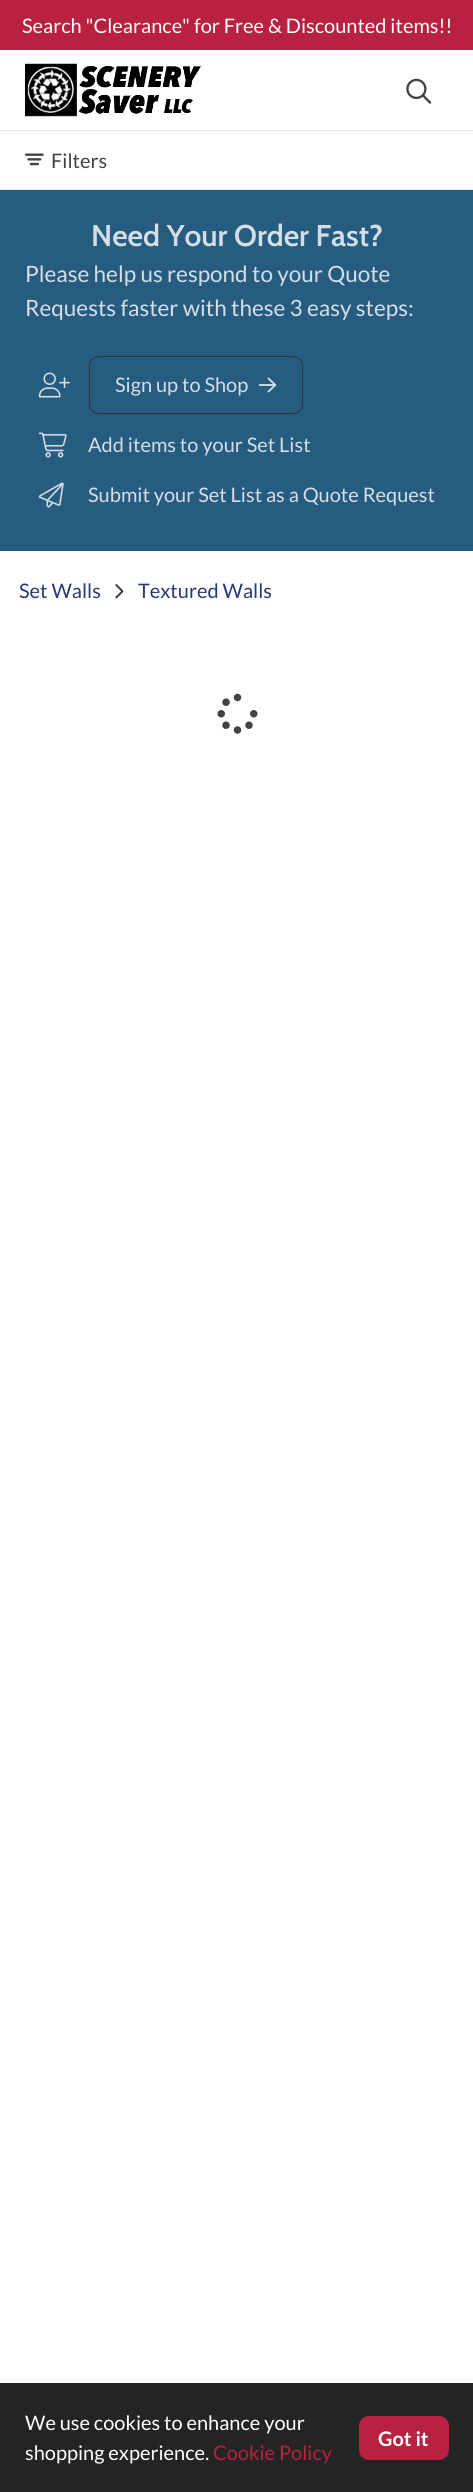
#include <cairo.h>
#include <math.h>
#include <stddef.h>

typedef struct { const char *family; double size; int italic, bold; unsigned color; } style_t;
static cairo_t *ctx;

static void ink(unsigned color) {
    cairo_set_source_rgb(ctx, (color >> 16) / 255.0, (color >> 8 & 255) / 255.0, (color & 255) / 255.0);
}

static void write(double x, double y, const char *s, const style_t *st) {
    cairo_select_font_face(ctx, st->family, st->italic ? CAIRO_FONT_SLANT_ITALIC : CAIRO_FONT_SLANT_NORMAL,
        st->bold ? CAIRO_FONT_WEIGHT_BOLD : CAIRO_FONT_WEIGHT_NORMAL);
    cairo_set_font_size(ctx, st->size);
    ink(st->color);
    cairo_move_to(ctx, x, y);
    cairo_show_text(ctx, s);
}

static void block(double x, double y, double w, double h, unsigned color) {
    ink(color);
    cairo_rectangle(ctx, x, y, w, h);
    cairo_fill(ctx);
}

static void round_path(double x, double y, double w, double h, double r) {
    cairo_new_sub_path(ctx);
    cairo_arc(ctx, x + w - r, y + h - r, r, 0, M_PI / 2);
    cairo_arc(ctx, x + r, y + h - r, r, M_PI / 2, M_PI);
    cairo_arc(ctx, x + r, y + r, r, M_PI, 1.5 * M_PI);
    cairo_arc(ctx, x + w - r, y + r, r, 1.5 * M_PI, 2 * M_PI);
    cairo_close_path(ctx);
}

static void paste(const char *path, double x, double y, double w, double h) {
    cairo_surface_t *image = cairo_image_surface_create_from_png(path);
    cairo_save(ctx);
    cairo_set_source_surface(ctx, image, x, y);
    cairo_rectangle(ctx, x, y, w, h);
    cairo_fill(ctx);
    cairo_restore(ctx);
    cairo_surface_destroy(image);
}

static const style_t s1 = {"Lato", 20, 0, 0, 0xffffff};
static const style_t s2 = {"Lato", 20, 0, 0, 0x424242};
static const style_t s3 = {"Cabin SemiBold", 30, 0, 0, 0xd4dee6};
static const style_t s4 = {"Lato", 22.5, 0, 0, 0xd4dee6};
static const style_t s5 = {"Lato", 20, 0, 0, 0xd4dee6};
static const style_t s6 = {"Lato", 20, 0, 0, 0x283878};
static const style_t s7 = {"Lato", 20, 0, 0, 0xb82140};
static const style_t s8 = {"Lato", 20, 0, 1, 0xffffff};

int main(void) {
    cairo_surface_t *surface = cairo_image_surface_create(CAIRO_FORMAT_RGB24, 473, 2492);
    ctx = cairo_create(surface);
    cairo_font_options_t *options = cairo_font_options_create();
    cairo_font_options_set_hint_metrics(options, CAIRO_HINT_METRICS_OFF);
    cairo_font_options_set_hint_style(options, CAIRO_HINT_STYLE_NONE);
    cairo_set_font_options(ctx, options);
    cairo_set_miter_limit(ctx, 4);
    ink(0xffffff);
    cairo_paint(ctx);
    block(0, 0, 473, 50, 0xb82140);
    write(22, 33, "Search \"Clearance\" for Free & Discounted items!!", &s1);
    paste("pic1.png", 25, 63, 176, 54);
    paste("pic2.png", 406, 78, 26, 26);
    block(0, 130, 473, 1, 0xe6e6e6);
    block(0, 189, 473, 1, 0xe6e6e6);
    paste("pic3.png", 25, 153, 19, 13);
    write(51, 168, "Filters", &s2);
    block(0, 190, 473, 361, 0x275c81);
    write(91, 246, "Need Your Order Fast?", &s3);
    write(25, 282, "Please help us respond to your Quote", &s4);
    write(25, 316, "Requests faster with these 3 easy steps:", &s4);
    paste("pic4.png", 38, 372, 32, 26);
    round_path(89.5, 356.5, 213, 57, 9.5);
    ink(0x30313d);
    cairo_set_line_width(ctx, 1);
    cairo_stroke(ctx);
    write(115, 392, "Sign up to Shop", &s5);
    paste("pic5.png", 258, 377, 19, 16);
    paste("pic6.png", 38, 432, 29, 26);
    write(88, 452, "Add items to your Set List", &s5);
    paste("pic7.png", 38, 482, 26, 26);
    write(88, 502, "Submit your Set List as a Quote Request", &s5);
    write(19, 598, "Set Walls", &s6);
    paste("pic8.png", 115, 584, 9, 15);
    write(138, 598, "Textured Walls", &s6);
    paste("pic9.png", 217, 693, 41, 41);
    block(0, 2383, 473, 109, 0x242424);
    write(25, 2430, "We use cookies to enhance your", &s1);
    write(25, 2460, "shopping experience.", &s1);
    write(213, 2460, "Cookie Policy", &s7);
    round_path(359, 2416, 90, 44, 10);
    cairo_fill(ctx);
    write(378, 2446, "Got it", &s8);
    cairo_surface_write_to_png(surface, "screenshot.png");
    cairo_font_options_destroy(options);
    cairo_destroy(ctx);
    cairo_surface_destroy(surface);
    return 0;
}
